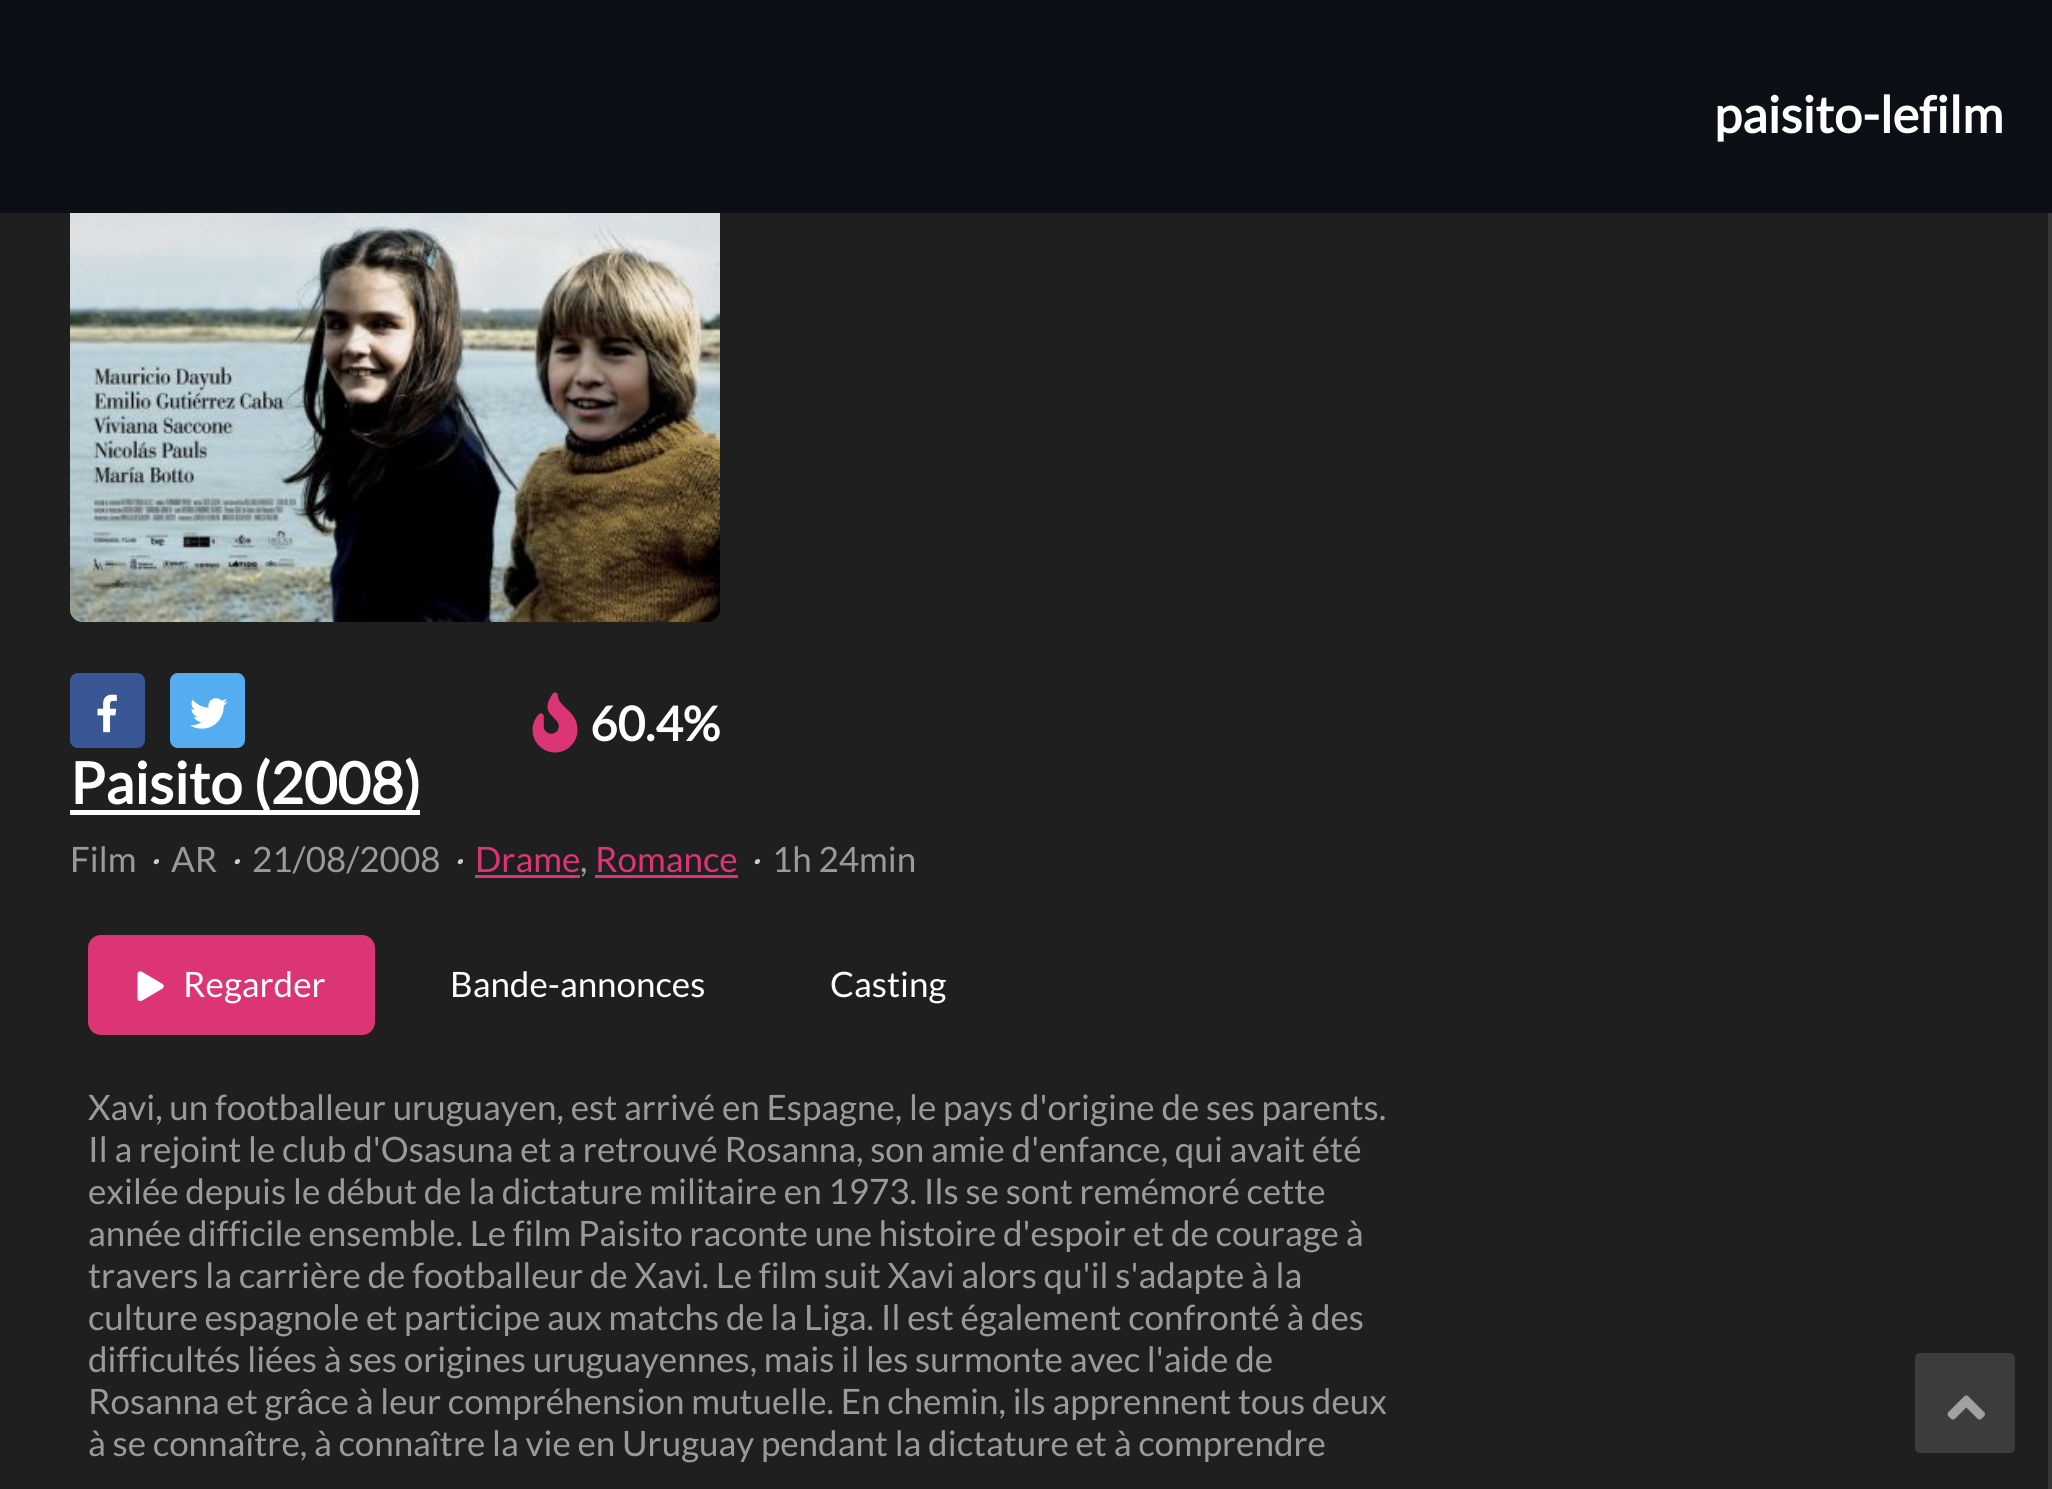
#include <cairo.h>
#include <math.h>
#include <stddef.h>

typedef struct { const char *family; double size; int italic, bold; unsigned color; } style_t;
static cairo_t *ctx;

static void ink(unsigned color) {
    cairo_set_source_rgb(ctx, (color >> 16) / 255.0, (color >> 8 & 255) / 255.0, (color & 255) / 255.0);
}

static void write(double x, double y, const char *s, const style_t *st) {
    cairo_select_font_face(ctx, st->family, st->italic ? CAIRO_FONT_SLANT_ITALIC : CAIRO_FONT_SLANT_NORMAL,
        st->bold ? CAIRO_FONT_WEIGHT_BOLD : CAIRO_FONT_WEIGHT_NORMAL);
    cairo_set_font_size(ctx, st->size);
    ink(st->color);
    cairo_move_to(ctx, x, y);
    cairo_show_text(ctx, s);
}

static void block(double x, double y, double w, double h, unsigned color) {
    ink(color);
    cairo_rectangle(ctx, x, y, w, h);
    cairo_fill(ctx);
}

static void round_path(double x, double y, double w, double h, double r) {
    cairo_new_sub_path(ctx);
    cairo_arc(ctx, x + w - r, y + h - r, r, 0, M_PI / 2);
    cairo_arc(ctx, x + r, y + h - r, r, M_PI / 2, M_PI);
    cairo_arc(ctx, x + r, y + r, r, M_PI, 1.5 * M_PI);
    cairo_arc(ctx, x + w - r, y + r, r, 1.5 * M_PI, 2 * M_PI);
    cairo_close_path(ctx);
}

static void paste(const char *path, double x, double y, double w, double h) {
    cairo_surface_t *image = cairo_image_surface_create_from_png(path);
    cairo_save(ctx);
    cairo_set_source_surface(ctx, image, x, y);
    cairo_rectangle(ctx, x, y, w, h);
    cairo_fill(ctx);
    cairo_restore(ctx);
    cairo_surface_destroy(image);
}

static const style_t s1 = {"Lato", 50.5, 0, 1, 0xffffff};
static const style_t s2 = {"Lato", 47.5, 0, 1, 0xffffff};
static const style_t s3 = {"Lato", 57.5, 0, 1, 0xffffff};
static const style_t s4 = {"Lato", 35, 0, 0, 0x9a9a9a};
static const style_t s5 = {"Lato", 35, 1, 0, 0xcccccc};
static const style_t s6 = {"Lato", 35, 0, 0, 0xdb3575};
static const style_t s7 = {"Lato", 35, 0, 0, 0xffffff};

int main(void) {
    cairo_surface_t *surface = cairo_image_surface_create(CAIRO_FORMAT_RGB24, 2052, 1489);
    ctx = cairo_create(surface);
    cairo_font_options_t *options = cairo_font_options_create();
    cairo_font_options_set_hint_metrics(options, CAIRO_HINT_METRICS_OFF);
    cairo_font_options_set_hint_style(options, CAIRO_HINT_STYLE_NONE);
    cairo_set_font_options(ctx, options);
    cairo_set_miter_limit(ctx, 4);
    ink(0x363636);
    cairo_paint(ctx);
    block(0, 0, 2052, 213, 0x0c0f16);
    write(1714, 133, "paisito-lefilm", &s1);
    block(0, 213, 2048, 1276, 0x1f1f1f);
    paste("pic1.png", 70, 213, 650, 409);
    ink(0x3a5795);
    round_path(70, 673, 75, 75, 8);
    cairo_fill(ctx);
    paste("pic2.png", 97, 694, 20, 39);
    ink(0x55acee);
    round_path(170, 673, 75, 75, 8);
    cairo_fill(ctx);
    paste("pic3.png", 190, 698, 38, 31);
    paste("pic4.png", 532, 692, 46, 61);
    write(590, 741, "60.4%", &s2);
    block(70, 810, 350, 5, 0xffffff);
    write(70, 804, "Paisito (2008)", &s3);
    write(70, 872, "Film", &s4);
    write(149, 872, "·", &s5);
    write(171, 872, "AR", &s4);
    write(230, 872, "·", &s5);
    write(252, 872, "21/08/2008", &s4);
    write(453, 872, "·", &s5);
    write(475, 872, "Drame", &s6);
    block(475, 875, 105, 3, 0xdb3575);
    write(595, 872, "Romance", &s6);
    block(595, 875, 143, 3, 0xdb3575);
    write(750, 872, "·", &s5);
    write(772, 872, "1h 24min", &s4);
    write(580, 872, ",", &s4);
    ink(0xdb3575);
    round_path(88, 935, 287, 100, 13);
    cairo_fill(ctx);
    paste("pic5.png", 137, 971, 27, 31);
    write(183, 997, "Regarder", &s7);
    write(450, 997, "Bande-annonces", &s7);
    write(830, 997, "Casting", &s7);
    write(88, 1120, "Xavi, un footballeur uruguayen, est arrivé en Espagne, le pays d'origine de ses parents.", &s4);
    write(88, 1162, "Il a rejoint le club d'Osasuna et a retrouvé Rosanna, son amie d'enfance, qui avait été", &s4);
    write(88, 1204, "exilée depuis le début de la dictature militaire en 1973. Ils se sont remémoré cette", &s4);
    write(88, 1246, "année difficile ensemble. Le film Paisito raconte une histoire d'espoir et de courage à", &s4);
    write(88, 1288, "travers la carrière de footballeur de Xavi. Le film suit Xavi alors qu'il s'adapte à la", &s4);
    write(88, 1330, "culture espagnole et participe aux matchs de la Liga. Il est également confronté à des", &s4);
    write(88, 1372, "difficultés liées à ses origines uruguayennes, mais il les surmonte avec l'aide de", &s4);
    write(88, 1414, "Rosanna et grâce à leur compréhension mutuelle. En chemin, ils apprennent tous deux", &s4);
    write(88, 1456, "à se connaître, à connaître la vie en Uruguay pendant la dictature et à comprendre", &s4);
    ink(0x3c3c3c);
    round_path(1915, 1353, 100, 100, 5);
    cairo_fill(ctx);
    paste("pic6.png", 1947, 1395, 38, 25);
    cairo_surface_write_to_png(surface, "screenshot.png");
    cairo_font_options_destroy(options);
    cairo_destroy(ctx);
    cairo_surface_destroy(surface);
    return 0;
}
